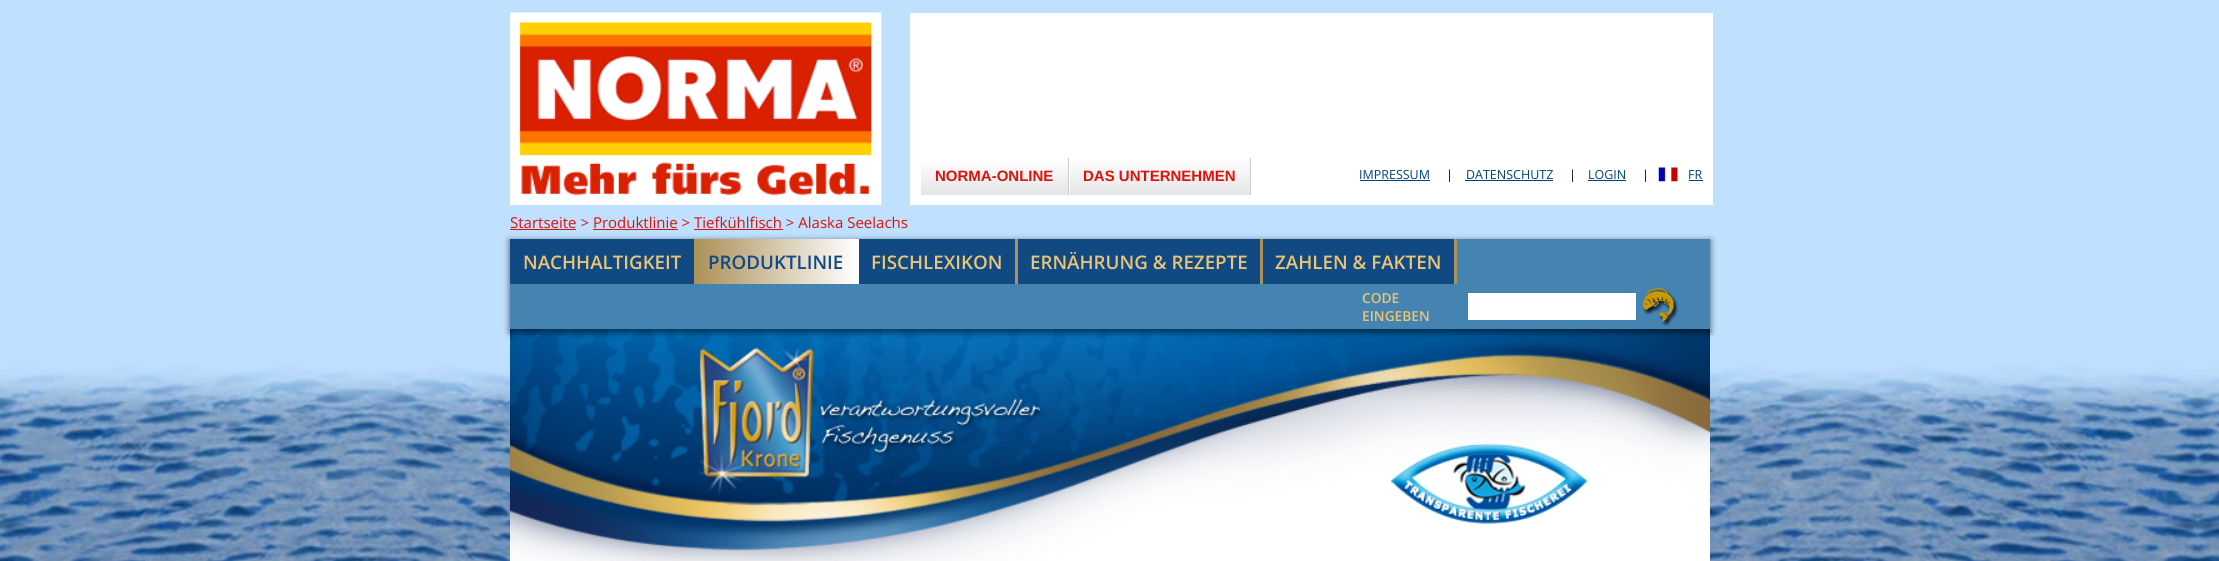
#include <cairo.h>
#include <math.h>
#include <stddef.h>

typedef struct { const char *family; double size; int italic, bold; unsigned color; } style_t;
static cairo_t *ctx;

static void ink(unsigned color) {
    cairo_set_source_rgb(ctx, (color >> 16) / 255.0, (color >> 8 & 255) / 255.0, (color & 255) / 255.0);
}

static void write(double x, double y, const char *s, const style_t *st) {
    cairo_select_font_face(ctx, st->family, st->italic ? CAIRO_FONT_SLANT_ITALIC : CAIRO_FONT_SLANT_NORMAL,
        st->bold ? CAIRO_FONT_WEIGHT_BOLD : CAIRO_FONT_WEIGHT_NORMAL);
    cairo_set_font_size(ctx, st->size);
    ink(st->color);
    cairo_move_to(ctx, x, y);
    cairo_show_text(ctx, s);
}

static void block(double x, double y, double w, double h, unsigned color) {
    ink(color);
    cairo_rectangle(ctx, x, y, w, h);
    cairo_fill(ctx);
}

static void round_path(double x, double y, double w, double h, double r) {
    cairo_new_sub_path(ctx);
    cairo_arc(ctx, x + w - r, y + h - r, r, 0, M_PI / 2);
    cairo_arc(ctx, x + r, y + h - r, r, M_PI / 2, M_PI);
    cairo_arc(ctx, x + r, y + r, r, M_PI, 1.5 * M_PI);
    cairo_arc(ctx, x + w - r, y + r, r, 1.5 * M_PI, 2 * M_PI);
    cairo_close_path(ctx);
}

static void blur_box(double x, double y, double w, double h, double r, double blur, double alpha) {
    cairo_push_group_with_content(ctx, CAIRO_CONTENT_ALPHA);
    cairo_set_operator(ctx, CAIRO_OPERATOR_SOURCE);
    for (int i = 15; i >= -15 && fmin(w, h) + blur * i / 3 > 0; i -= 2) {
        double e = blur * i / 6;
        cairo_set_source_rgba(ctx, 0, 0, 0, alpha * erfc((i - 1) / 8.5) / 2);
        round_path(x - e, y - e, w + 2 * e, h + 2 * e, fmax(0, fmin(r + e + blur * .6, fmin(w, h) / 2 + e)));
        cairo_fill(ctx);
    }
    cairo_pattern_t *soft = cairo_pop_group(ctx);
    cairo_mask(ctx, soft);
    cairo_pattern_destroy(soft);
}

static void paste(const char *path, double x, double y, double w, double h) {
    cairo_surface_t *image = cairo_image_surface_create_from_png(path);
    cairo_save(ctx);
    cairo_set_source_surface(ctx, image, x, y);
    cairo_rectangle(ctx, x, y, w, h);
    cairo_fill(ctx);
    cairo_restore(ctx);
    cairo_surface_destroy(image);
}

static const style_t s1 = {"Liberation Sans", 15, 0, 1, 0xdc130c};
static const style_t s2 = {"Open Sans", 12.5, 0, 0, 0x004177};
static const style_t s3 = {"Open Sans", 12.5, 0, 0, 0x000000};
static const style_t s4 = {"Open Sans", 15, 0, 0, 0xdc130c};
static const style_t s5 = {"Open Sans SemiBold", 18.75, 0, 0, 0xebc575};
static const style_t s6 = {"Open Sans SemiBold", 18.75, 0, 0, 0x114982};
static const style_t s7 = {"Open Sans SemiBold", 13.75, 0, 0, 0xebc575};

int main(void) {
    cairo_surface_t *surface = cairo_image_surface_create(CAIRO_FORMAT_RGB24, 2219, 561);
    ctx = cairo_create(surface);
    cairo_font_options_t *options = cairo_font_options_create();
    cairo_font_options_set_hint_metrics(options, CAIRO_HINT_METRICS_OFF);
    cairo_font_options_set_hint_style(options, CAIRO_HINT_STYLE_NONE);
    cairo_set_font_options(ctx, options);
    cairo_set_miter_limit(ctx, 4);
    cairo_pattern_t *gradient;
    ink(0xffffff);
    cairo_paint(ctx);
    paste("pic1.png", 0, 0, 2219, 561);
    paste("pic2.png", 510, 12, 372, 193);
    block(910, 13, 803, 192, 0xffffff);
    gradient = cairo_pattern_create_linear(994, 158, 994, 195);
    cairo_pattern_add_color_stop_rgba(gradient, 0, 1, 1, 1, 1);
    cairo_pattern_add_color_stop_rgba(gradient, 1, 0.898, 0.898, 0.898, 1);
    cairo_set_source(ctx, gradient);
    cairo_pattern_destroy(gradient);
    cairo_rectangle(ctx, 921, 162, 147, 33);
    cairo_fill(ctx);
    block(1068, 158, 1, 37, 0xcccccc);
    write(935, 181, "NORMA-ONLINE", &s1);
    gradient = cairo_pattern_create_linear(1160, 157, 1160, 195);
    cairo_pattern_add_color_stop_rgba(gradient, 0, 1, 1, 1, 1);
    cairo_pattern_add_color_stop_rgba(gradient, 1, 0.898, 0.898, 0.898, 1);
    cairo_set_source(ctx, gradient);
    cairo_pattern_destroy(gradient);
    cairo_rectangle(ctx, 1070, 161, 180, 34);
    cairo_fill(ctx);
    block(1250, 158, 1, 37, 0xcccccc);
    write(1083, 181, "DAS UNTERNEHMEN", &s1);
    write(1359, 179, "IMPRESSUM", &s2);
    block(1360, 180, 70, 1, 0x004177);
    write(1446, 179, "|", &s3);
    write(1466, 179, "DATENSCHUTZ", &s2);
    block(1465, 180, 88, 1, 0x004177);
    write(1569, 179, "|", &s3);
    write(1588, 179, "LOGIN", &s2);
    block(1588, 180, 38, 1, 0x004177);
    write(1642, 179, "|", &s3);
    paste("pic3.png", 1658, 167, 20, 15);
    write(1688, 179, "FR", &s2);
    block(1689, 180, 14, 1, 0x004177);
    write(510, 228, "Startseite > Produktlinie > Tiefkühlfisch > Alaska Seelachs", &s4);
    block(510, 229, 66, 1, 0xdc130c);
    block(593, 229, 85, 1, 0xdc130c);
    block(694, 229, 89, 1, 0xdc130c);
    block(510, 373, 1200, 188, 0xffffff);
    paste("pic5.png", 510, 329, 1200, 232);
    ink(0x000000);
    blur_box(509, 240, 1202, 93, 0, 3, 0.5);
    block(510, 239, 1200, 90, 0x4584b0);
    block(510, 239, 944, 45, 0x114982);
    block(694, 239, 2, 45, 0xac9159);
    write(523, 269, "NACHHALTIGKEIT", &s5);
    gradient = cairo_pattern_create_linear(696, 261, 856, 261);
    cairo_pattern_add_color_stop_rgba(gradient, 0, 0.675, 0.569, 0.349, 1);
    cairo_pattern_add_color_stop_rgba(gradient, 1, 1, 1, 1, 1);
    cairo_set_source(ctx, gradient);
    cairo_pattern_destroy(gradient);
    cairo_rectangle(ctx, 696, 239, 160, 45);
    cairo_fill(ctx);
    block(856, 239, 3, 45, 0xffffff);
    write(708, 269, "PRODUKTLINIE", &s6);
    block(1015, 239, 3, 45, 0xac9159);
    write(871, 269, "FISCHLEXIKON", &s5);
    block(1260, 239, 3, 45, 0xac9159);
    write(1030, 269, "ERNÄHRUNG & REZEPTE", &s5);
    block(1454, 239, 3, 45, 0xac9159);
    write(1275, 269, "ZAHLEN & FAKTEN", &s5);
    write(1362, 303, "CODE", &s7);
    write(1362, 321, "EINGEBEN", &s7);
    block(1468, 293, 168, 27, 0xffffff);
    paste("pic4.png", 1643, 287, 36, 40);
    cairo_surface_write_to_png(surface, "screenshot.png");
    cairo_font_options_destroy(options);
    cairo_destroy(ctx);
    cairo_surface_destroy(surface);
    return 0;
}
